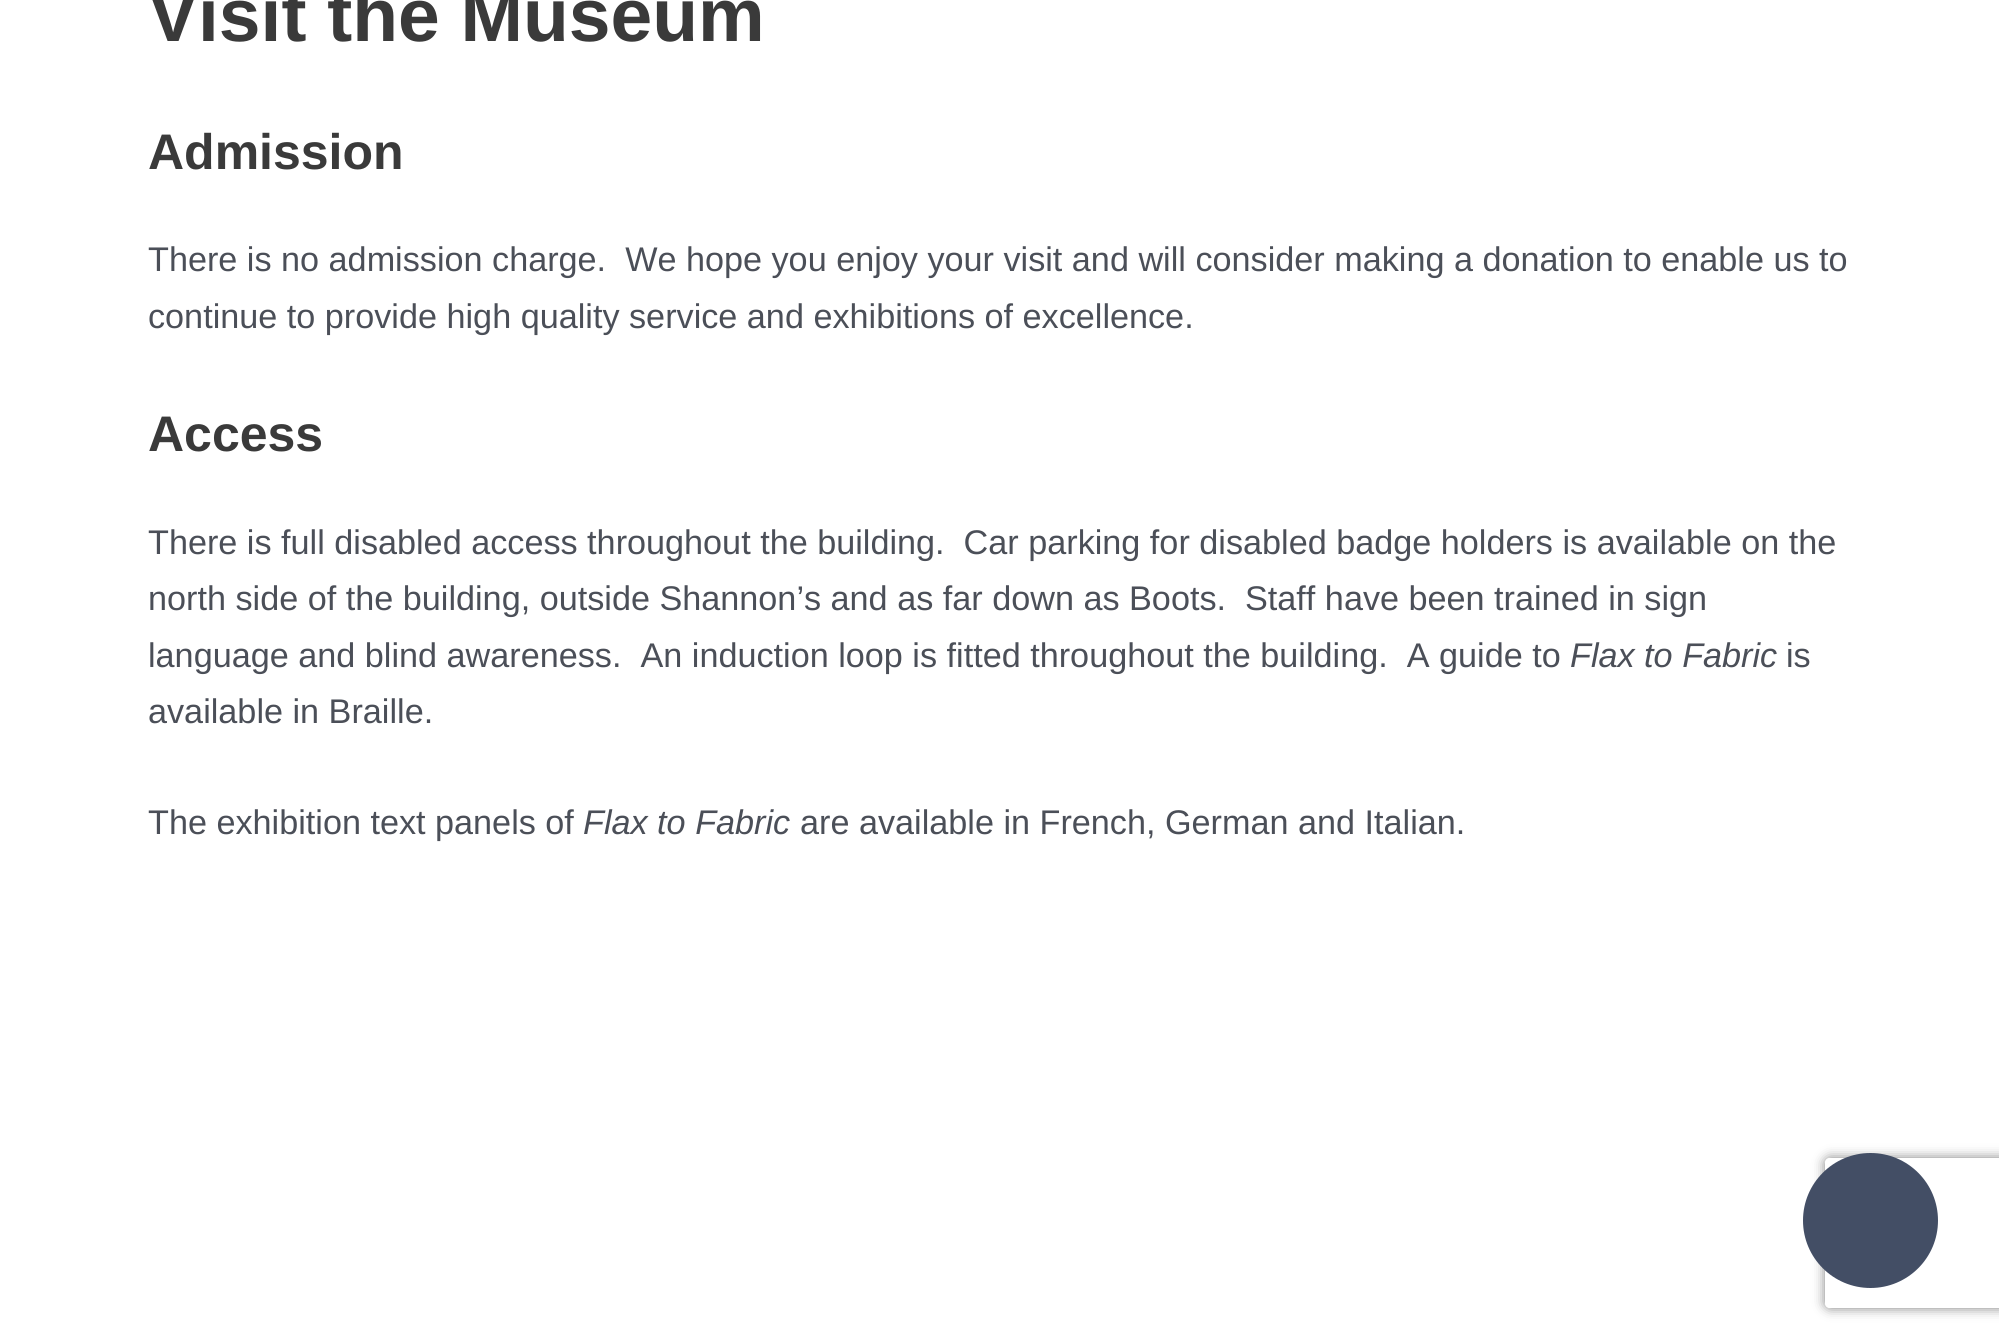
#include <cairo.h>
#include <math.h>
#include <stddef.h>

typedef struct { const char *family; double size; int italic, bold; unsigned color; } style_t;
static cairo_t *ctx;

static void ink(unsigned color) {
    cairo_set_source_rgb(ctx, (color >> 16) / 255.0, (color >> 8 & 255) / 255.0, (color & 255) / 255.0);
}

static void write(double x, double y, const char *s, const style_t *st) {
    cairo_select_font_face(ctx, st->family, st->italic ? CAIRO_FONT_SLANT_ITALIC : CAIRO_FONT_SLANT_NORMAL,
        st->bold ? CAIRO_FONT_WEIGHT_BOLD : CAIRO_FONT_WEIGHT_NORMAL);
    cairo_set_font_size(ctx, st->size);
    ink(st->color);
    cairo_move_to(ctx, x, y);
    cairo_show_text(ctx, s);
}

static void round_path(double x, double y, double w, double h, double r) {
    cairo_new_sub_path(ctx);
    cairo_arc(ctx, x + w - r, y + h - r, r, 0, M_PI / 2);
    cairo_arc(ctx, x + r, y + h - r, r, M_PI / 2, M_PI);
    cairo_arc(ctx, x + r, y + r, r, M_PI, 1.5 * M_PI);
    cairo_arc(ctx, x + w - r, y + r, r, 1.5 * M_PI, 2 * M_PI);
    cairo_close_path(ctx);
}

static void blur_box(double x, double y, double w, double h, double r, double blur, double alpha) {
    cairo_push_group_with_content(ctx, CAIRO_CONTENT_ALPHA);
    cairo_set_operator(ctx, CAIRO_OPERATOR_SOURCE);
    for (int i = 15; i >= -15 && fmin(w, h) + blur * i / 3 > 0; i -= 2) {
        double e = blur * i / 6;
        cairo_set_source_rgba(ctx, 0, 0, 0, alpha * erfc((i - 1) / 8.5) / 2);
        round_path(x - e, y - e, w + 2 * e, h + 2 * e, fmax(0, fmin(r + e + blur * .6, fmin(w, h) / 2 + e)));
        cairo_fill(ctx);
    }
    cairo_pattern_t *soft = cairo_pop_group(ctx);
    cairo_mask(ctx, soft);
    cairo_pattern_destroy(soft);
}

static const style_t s1 = {"Liberation Sans", 75, 0, 1, 0x3a3a3a};
static const style_t s2 = {"Liberation Sans", 50, 0, 1, 0x3a3a3a};
static const style_t s3 = {"Liberation Sans", 34.2, 0, 0, 0x4b4f58};
static const style_t s4 = {"Liberation Sans", 34.2, 1, 0, 0x4b4f58};

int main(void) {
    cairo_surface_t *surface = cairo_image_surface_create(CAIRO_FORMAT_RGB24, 1999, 1341);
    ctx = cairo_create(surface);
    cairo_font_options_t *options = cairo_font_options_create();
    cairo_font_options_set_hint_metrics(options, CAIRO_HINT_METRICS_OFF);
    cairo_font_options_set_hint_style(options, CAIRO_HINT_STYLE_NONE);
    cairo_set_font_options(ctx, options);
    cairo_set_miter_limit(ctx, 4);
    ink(0xffffff);
    cairo_paint(ctx);
    write(148, 41, "Visit the Museum", &s1);
    write(148, 169, "Admission", &s2);
    write(148, 271, "There is no admission charge.  We hope you enjoy your visit and will consider making a donation to enable us to", &s3);
    write(148, 328, "continue to provide high quality service and exhibitions of excellence.", &s3);
    write(148, 451, "Access", &s2);
    write(148, 554, "There is full disabled access throughout the building.  Car parking for disabled badge holders is available on the", &s3);
    write(148, 610, "north side of the building, outside Shannon’s and as far down as Boots.  Staff have been trained in sign", &s3);
    write(148, 667, "language and blind awareness.  An induction loop is fitted throughout the building.  A guide to", &s3);
    write(1570, 667, "Flax to Fabric", &s4);
    write(1786, 667, "is", &s3);
    write(148, 723, "available in Braille.", &s3);
    write(148, 834, "The exhibition text panels of", &s3);
    write(583, 834, "Flax to Fabric", &s4);
    write(800, 834, "are available in French, German and Italian.", &s3);
    cairo_save(ctx);
    cairo_set_fill_rule(ctx, CAIRO_FILL_RULE_EVEN_ODD);
    cairo_new_path(ctx);
    cairo_move_to(ctx, 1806, 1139);
    cairo_line_to(ctx, 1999, 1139);
    cairo_line_to(ctx, 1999, 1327);
    cairo_line_to(ctx, 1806, 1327);
    cairo_close_path(ctx);
    cairo_move_to(ctx, 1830, 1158);
    cairo_line_to(ctx, 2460, 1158);
    cairo_curve_to(ctx, 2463, 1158, 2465, 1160, 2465, 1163);
    cairo_line_to(ctx, 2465, 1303);
    cairo_curve_to(ctx, 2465, 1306, 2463, 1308, 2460, 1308);
    cairo_line_to(ctx, 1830, 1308);
    cairo_curve_to(ctx, 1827, 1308, 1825, 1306, 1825, 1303);
    cairo_line_to(ctx, 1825, 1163);
    cairo_curve_to(ctx, 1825, 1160, 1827, 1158, 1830, 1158);
    cairo_close_path(ctx);
    cairo_clip(ctx);
    ink(0x808080);
    blur_box(1825, 1158, 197, 150, 5, 6, 1);
    cairo_restore(ctx);
    ink(0x434e65);
    cairo_arc(ctx, 1870.5, 1220.5, 67.5, 0, 2 * M_PI);
    cairo_fill(ctx);
    cairo_surface_write_to_png(surface, "screenshot.png");
    cairo_font_options_destroy(options);
    cairo_destroy(ctx);
    cairo_surface_destroy(surface);
    return 0;
}
